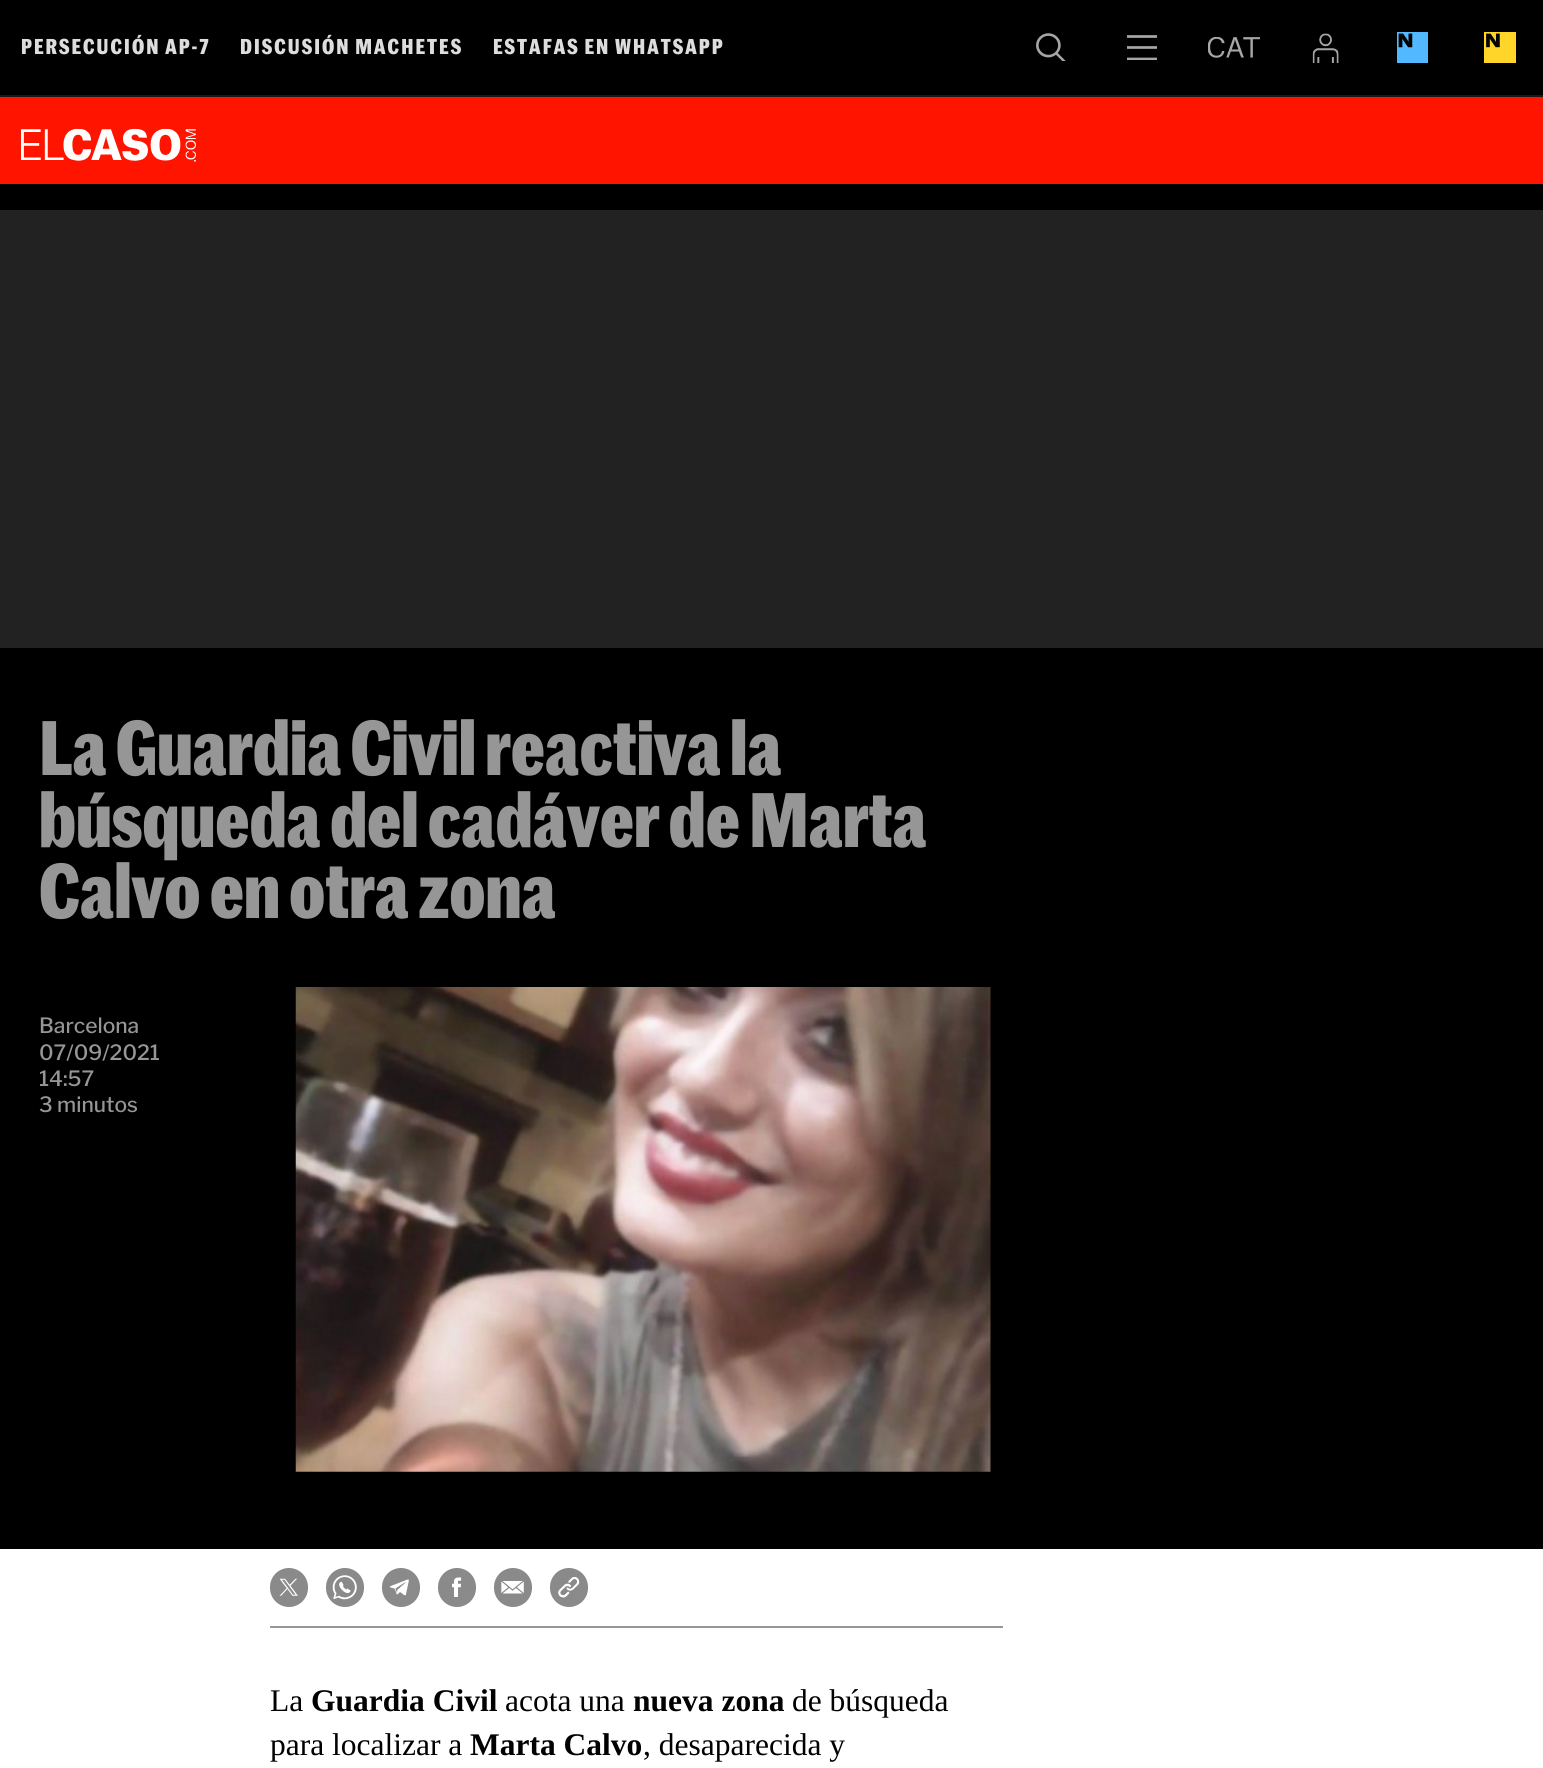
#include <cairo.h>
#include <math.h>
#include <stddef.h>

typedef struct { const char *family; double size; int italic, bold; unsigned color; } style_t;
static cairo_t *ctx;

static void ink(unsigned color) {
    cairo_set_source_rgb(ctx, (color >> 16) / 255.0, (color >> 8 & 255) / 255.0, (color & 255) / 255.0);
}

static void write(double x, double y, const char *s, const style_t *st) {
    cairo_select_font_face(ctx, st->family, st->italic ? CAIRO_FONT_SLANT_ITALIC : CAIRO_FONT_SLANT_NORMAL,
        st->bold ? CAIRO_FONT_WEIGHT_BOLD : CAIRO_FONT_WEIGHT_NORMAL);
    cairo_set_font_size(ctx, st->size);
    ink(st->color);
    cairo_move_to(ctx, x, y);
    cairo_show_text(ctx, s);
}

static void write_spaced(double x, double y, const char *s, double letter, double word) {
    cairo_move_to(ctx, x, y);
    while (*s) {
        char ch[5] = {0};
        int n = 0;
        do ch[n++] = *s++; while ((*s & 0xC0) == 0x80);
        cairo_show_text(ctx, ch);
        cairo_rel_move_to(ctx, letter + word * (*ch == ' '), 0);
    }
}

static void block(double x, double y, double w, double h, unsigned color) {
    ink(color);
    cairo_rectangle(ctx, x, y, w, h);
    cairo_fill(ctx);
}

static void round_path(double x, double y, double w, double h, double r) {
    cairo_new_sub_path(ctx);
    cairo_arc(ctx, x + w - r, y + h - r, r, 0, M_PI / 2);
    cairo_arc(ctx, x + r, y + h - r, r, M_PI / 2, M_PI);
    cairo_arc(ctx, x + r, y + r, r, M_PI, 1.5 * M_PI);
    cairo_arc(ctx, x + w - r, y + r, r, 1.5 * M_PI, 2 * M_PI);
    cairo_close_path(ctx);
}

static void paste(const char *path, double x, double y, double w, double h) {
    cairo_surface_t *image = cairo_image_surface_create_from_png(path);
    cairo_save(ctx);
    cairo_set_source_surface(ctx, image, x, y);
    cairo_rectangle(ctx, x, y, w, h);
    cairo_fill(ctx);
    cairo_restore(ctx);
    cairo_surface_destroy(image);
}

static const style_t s1 = {"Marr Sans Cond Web", 75.25, 0, 1, 0x969696};
static const style_t s2 = {"Libre Franklin Medium", 21, 0, 0, 0x969696};
static const style_t s3 = {"Liberation Serif", 31.5, 0, 0, 0x000000};
static const style_t s4 = {"Liberation Serif", 31.5, 0, 1, 0x000000};

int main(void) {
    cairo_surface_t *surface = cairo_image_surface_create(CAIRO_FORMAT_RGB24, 1543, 1768);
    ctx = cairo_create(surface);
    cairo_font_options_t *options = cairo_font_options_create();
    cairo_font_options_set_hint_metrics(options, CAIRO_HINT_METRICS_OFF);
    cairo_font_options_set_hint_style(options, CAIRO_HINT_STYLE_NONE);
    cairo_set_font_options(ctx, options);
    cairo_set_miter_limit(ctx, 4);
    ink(0x000000);
    cairo_paint(ctx);
    block(0, 95, 1543, 2, 0x191919);
    cairo_select_font_face(ctx, "Marr Sans Cond Web", CAIRO_FONT_SLANT_NORMAL, CAIRO_FONT_WEIGHT_BOLD);
    cairo_set_font_size(ctx, 21);
    ink(0xdddddd);
    write_spaced(21, 54, "PERSECUCIÓN AP-7", 2.1, 0);
    write_spaced(240, 54, "DISCUSIÓN MACHETES", 2.1, 0);
    write_spaced(493, 54, "ESTAFAS EN WHATSAPP", 2.1, 0);
    paste("pic1.png", 1036, 33, 30, 28);
    cairo_save(ctx);
    cairo_rectangle(ctx, 1127, 35, 30, 25);
    cairo_clip(ctx);
    cairo_new_path(ctx);
    cairo_move_to(ctx, 1127, 36.5);
    cairo_line_to(ctx, 1157, 36.5);
    cairo_move_to(ctx, 1127, 59);
    cairo_line_to(ctx, 1157, 59);
    cairo_move_to(ctx, 1127, 47.5);
    cairo_line_to(ctx, 1157, 47.5);
    ink(0xa7a6a6);
    cairo_set_line_width(ctx, 2.7);
    cairo_stroke(ctx);
    cairo_restore(ctx);
    paste("pic2.png", 1208, 37, 52, 21);
    paste("pic3.png", 1312, 33, 27, 30);
    paste("pic4.png", 1397, 32, 31, 31);
    paste("pic5.png", 1484, 32, 32, 31);
    block(0, 97, 1543, 87, 0xff1400);
    paste("pic6.png", 21, 128, 175, 34);
    block(0, 210, 1543, 438, 0x222222);
    write(39, 775, "La Guardia Civil reactiva la", &s1);
    write(39, 847, "búsqueda del cadáver de Marta", &s1);
    write(39, 918, "Calvo en otra zona", &s1);
    write(39, 1033, "Barcelona", &s2);
    write(39, 1060, "07/09/2021", &s2);
    write(39, 1086, "14:57", &s2);
    write(39, 1112, "3 minutos", &s2);
    paste("pic7.png", 295, 987, 696, 485);
    block(0, 1549, 1543, 219, 0xffffff);
    block(270, 1626, 733, 2, 0x969696);
    ink(0x8a8a8a);
    round_path(270, 1568, 38, 39, 19);
    cairo_fill(ctx);
    paste("pic8.png", 279, 1578, 19, 18);
    round_path(326, 1568, 38, 39, 19);
    cairo_fill(ctx);
    paste("pic9.png", 332, 1575, 25, 25);
    round_path(382, 1568, 38, 39, 19);
    cairo_fill(ctx);
    paste("pic10.png", 390, 1579, 19, 17);
    round_path(438, 1568, 38, 39, 19);
    cairo_fill(ctx);
    paste("pic11.png", 452, 1577, 10, 20);
    round_path(494, 1568, 38, 39, 19);
    cairo_fill(ctx);
    paste("pic12.png", 501, 1581, 23, 13);
    round_path(550, 1568, 38, 39, 19);
    cairo_fill(ctx);
    paste("pic13.png", 558, 1577, 22, 21);
    write(270, 1711, "La", &s3);
    write(311, 1711, "Guardia Civil", &s4);
    write(505, 1711, "acota una", &s3);
    write(633, 1711, "nueva zona", &s4);
    write(792, 1711, "de búsqueda", &s3);
    write(270, 1755, "para localizar a", &s3);
    write(470, 1755, "Marta Calvo", &s4);
    write(643, 1755, ", desaparecida y", &s3);
    cairo_surface_write_to_png(surface, "screenshot.png");
    cairo_font_options_destroy(options);
    cairo_destroy(ctx);
    cairo_surface_destroy(surface);
    return 0;
}
